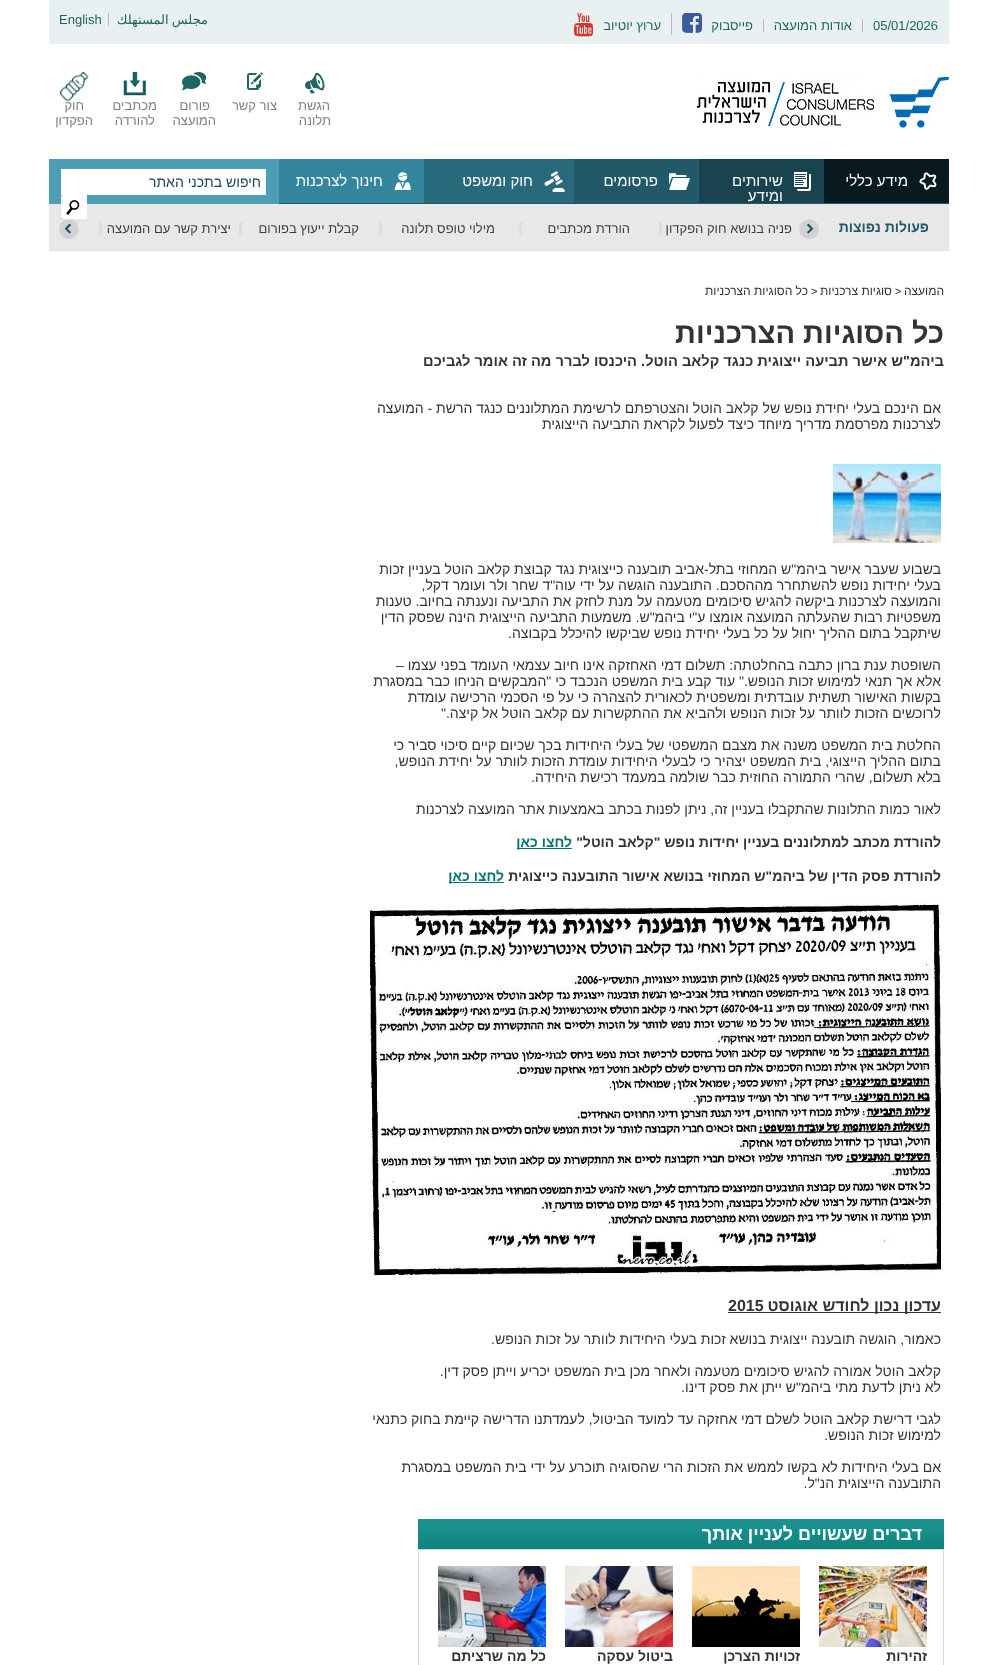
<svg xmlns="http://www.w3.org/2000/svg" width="997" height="1665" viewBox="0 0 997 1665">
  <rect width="100%" height="100%" fill="#fff"/>
  <path d="M49 0h900v44H49z" fill="#e9f0f2"/>
  <path d="M862 19h1v13H862z" fill="#bababa"/>
  <path d="M763 19h1v13H763z" fill="#bababa"/>
  <path d="M671 13h1v22H671z" fill="#bababa"/>
  <image x="682" y="13" width="20" height="20" href="img/1.png"/>
  <image x="574" y="13" width="19" height="24" href="img/2.png"/>
  <path d="M108 13h1v13H108z" fill="#bababa"/>
  <image x="697" y="77" width="252" height="51" href="img/3.png"/>
  <image x="305" y="72" width="20" height="22" href="img/4.png"/>
  <image x="247" y="72" width="16" height="18" href="img/5.png"/>
  <image x="182" y="72" width="25" height="19" href="img/6.png"/>
  <image x="123" y="72" width="23" height="24" href="img/7.png"/>
  <image x="60" y="72" width="29" height="30" href="img/8.png"/>
  <path d="M279 159h670v45H279z" fill="#215968"/>
  <path d="M824 159h125v44H824z" fill="#081a1f"/>
  <image x="919" y="172" width="18" height="18" href="img/9.png"/>
  <path d="M699 159h125v44H699z" fill="#19434f"/>
  <image x="794" y="172" width="17" height="19" href="img/10.png"/>
  <image x="669" y="173" width="21" height="17" href="img/11.png"/>
  <path d="M424 159h150v44H424z" fill="#286a7c"/>
  <image x="544" y="171" width="21" height="21" href="img/12.png"/>
  <path d="M279 159h145v44H279z" fill="#33869d"/>
  <image x="394" y="172" width="17" height="18" href="img/13.png"/>
  <path d="M49 159h230v45H49z" fill="#4c9eb5"/>
  <path d="M61 169h205v26H61z" fill="#fff"/>
  <path d="M49 204h900v46H49z" fill="#e8e8e8"/>
  <image x="61" y="195" width="26" height="24" href="img/14.png"/>
  <path d="M49 250h900v1H49z" fill="#e0e0e0"/>
  <image x="799" y="219" width="20" height="20" href="img/15.png"/>
  <path d="M659 222h3v13H659z" fill="#d4dfe3"/>
  <path d="M519 222h3v13H519z" fill="#d7e1e5"/>
  <path d="M379 222h3v13H379z" fill="#d7e1e5"/>
  <path d="M239 222h3v13H239z" fill="#d4dfe3"/>
  <path d="M99 222h3v13H99z" fill="#d7e1e5"/>
  <image x="59" y="219" width="20" height="20" href="img/16.png"/>
  <image x="833" y="464" width="108" height="80" href="img/17.png"/>
  <path d="M517 848h55v1H517z" fill="#057670"/>
  <path d="M449 882h55v1H449z" fill="#057670"/>
  <image x="370" y="901" width="571" height="375" href="img/18.png"/>
  <path d="M728 1312h213v1H728z" fill="#333"/>
  <image x="418" y="1519" width="526" height="30" href="img/19.png"/>
  <path d="M418.5 1549.5h525v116H418.5z" fill="none" stroke="#d7d7d7"/>
  <image x="819" y="1566" width="108" height="81" href="img/20.png"/>
  <image x="692" y="1566" width="108" height="81" href="img/21.png"/>
  <image x="565" y="1566" width="108" height="81" href="img/22.png"/>
  <image x="438" y="1566" width="108" height="81" href="img/23.png"/>
  <text x="873" y="30" font-family="Liberation Sans" font-size="13" fill="#1f6662">05/01/2026</text>
  <g font-family="Liberation Sans" font-size="13" direction="rtl" fill="#1f6662">
    <text x="852" y="30">אודות המועצה</text>
    <text x="753" y="30">פייסבוק</text>
    <text x="661" y="30">ערוץ יוטיוב</text>
  </g>
  <text x="208" y="24" word-spacing="-1" font-family="DejaVu Sans" font-size="13" direction="rtl" fill="#1f6662">مجلس المستهلك</text>
  <text x="59" y="24" font-family="Liberation Sans" font-size="13" fill="#1f6662">English</text>
  <g font-family="Liberation Sans" font-size="13" direction="rtl" fill="#7f7f7f">
    <text x="330" y="110">הגשת</text>
    <text x="331" y="125">תלונה</text>
    <text x="277" y="110">צור קשר</text>
    <text x="210" y="110">פורום</text>
    <text x="216" y="125">המועצה</text>
    <text x="157" y="110">מכתבים</text>
    <text x="155" y="125">להורדה</text>
    <text x="84" y="110">חוק</text>
    <text x="93" y="125">הפקדון</text>
  </g>
  <g font-family="Liberation Sans" font-size="15" direction="rtl" fill="#fff">
    <text x="908" y="186">מידע כללי</text>
    <text x="783" y="186">שירותים</text>
    <text x="783" y="201">ומידע</text>
    <text x="658" y="186">פרסומים</text>
    <text x="533" y="186">חוק ומשפט</text>
    <text x="383" y="186">חינוך לצרכנות</text>
  </g>
  <text x="261" y="187" font-family="Liberation Sans" font-size="14" direction="rtl" fill="#19434f">חיפוש בתכני האתר</text>
  <text x="929" y="232" font-family="Liberation Sans" font-size="14" font-weight="bold" direction="rtl" fill="#215968">פעולות נפוצות</text>
  <g font-family="Liberation Sans" font-size="13" direction="rtl" fill="#3a3f40">
    <text x="792" y="233">פניה בנושא חוק הפקדון</text>
    <text x="630" y="233">הורדת מכתבים</text>
    <text x="495" y="233">מילוי טופס תלונה</text>
    <text x="359" y="233">קבלת ייעוץ בפורום</text>
    <text x="231" y="233">יצירת קשר עם המועצה</text>
  </g>
  <text x="944" y="295" font-family="Liberation Sans" font-size="12" direction="rtl" fill="#333">המועצה</text>
  <text x="895" y="295" font-family="Liberation Sans" font-size="11" fill="#333">&gt;</text>
  <text x="892" y="295" font-family="Liberation Sans" font-size="12" direction="rtl" fill="#333">סוגיות צרכניות</text>
  <text x="811" y="295" font-family="Liberation Sans" font-size="11" fill="#333">&gt;</text>
  <text x="808" y="295" font-family="Liberation Sans" font-size="12" direction="rtl" fill="#333">כל הסוגיות הצרכניות</text>
  <text x="944" y="343" font-family="Liberation Sans" font-size="29" font-weight="bold" direction="rtl" fill="#333">כל הסוגיות הצרכניות</text>
  <text x="944" y="366" font-family="Liberation Sans" font-size="14.65" font-weight="bold" direction="rtl" fill="#333">ביהמ"ש אישר תביעה ייצוגית כנגד קלאב הוטל. היכנסו לברר מה זה אומר לגביכם</text>
  <g font-family="Liberation Sans" font-size="14" direction="rtl" fill="#333">
    <text x="941" y="413">אם הינכם בעלי יחידת נופש של קלאב הוטל והצטרפתם לרשימת המתלוננים כנגד הרשת - המועצה</text>
    <text x="941" y="429">לצרכנות מפרסמת מדריך מיוחד כיצד לפעול לקראת התביעה הייצוגית</text>
    <text x="941" y="574">בשבוע שעבר אישר ביהמ"ש המחוזי בתל-אביב תובענה כייצוגית נגד קבוצת קלאב הוטל בעניין זכות</text>
    <text x="941" y="590">בעלי יחידות נופש להשתחרר מההסכם. התובענה הוגשה על ידי עוה"ד שחר ולר ועומר דקל,</text>
    <text x="941" y="606">והמועצה לצרכנות ביקשה להגיש סיכומים מטעמה על מנת לחזק את התביעה ונענתה בחיוב. טענות</text>
    <text x="941" y="622">משפטיות רבות שהעלתה המועצה אומצו ע"י ביהמ"ש. משמעות התביעה הייצוגית הינה שפסק הדין</text>
    <text x="941" y="638">שיתקבל בתום ההליך יחול על כל בעלי יחידת נופש שביקשו להיכלל בקבוצה.</text>
    <text x="941" y="670">השופטת ענת ברון כתבה בהחלטתה: תשלום דמי האחזקה אינו חיוב עצמאי העומד בפני עצמו –</text>
    <text x="941" y="686">אלא אך תנאי למימוש זכות הנופש." עוד קבע בית המשפט הנכבד כי "המבקשים הניחו כבר במסגרת</text>
    <text x="941" y="702">בקשות האישור תשתית עובדתית ומשפטית לכאורית להצהרה כי על פי הסכמי הרכישה עומדת</text>
    <text x="941" y="718">לרוכשים הזכות לוותר על זכות הנופש ולהביא את ההתקשרות עם קלאב הוטל אל קיצה."</text>
    <text x="941" y="750">החלטת בית המשפט משנה את מצבם המשפטי של בעלי היחידות בכך שכיום קיים סיכוי סביר כי</text>
    <text x="941" y="766">בתום ההליך הייצוגי, בית המשפט יצהיר כי לבעלי היחידות עומדת הזכות לוותר על יחידת הנופש,</text>
    <text x="941" y="782">בלא תשלום, שהרי התמורה החוזית כבר שולמה במעמד רכישת היחידה.</text>
    <text x="941" y="814">לאור כמות התלונות שהתקבלו בעניין זה, ניתן לפנות בכתב באמצעות אתר המועצה לצרכנות</text>
  </g>
  <text x="941" y="847" font-family="Liberation Sans" font-size="14" font-weight="bold" direction="rtl" fill="#333">להורדת מכתב למתלוננים בעניין יחידות נופש "קלאב הוטל"</text>
  <text x="572" y="847" font-family="Liberation Sans" font-size="14" font-weight="bold" direction="rtl" fill="#057670">לחצו כאן</text>
  <text x="941" y="881" font-family="Liberation Sans" font-size="14" font-weight="bold" direction="rtl" fill="#333">להורדת פסק הדין של ביהמ"ש המחוזי בנושא אישור התובענה כייצוגית</text>
  <text x="504" y="881" font-family="Liberation Sans" font-size="14" font-weight="bold" direction="rtl" fill="#057670">לחצו כאן</text>
  <text x="941" y="1311" font-family="Liberation Sans" font-size="16" font-weight="bold" direction="rtl" fill="#333">עדכון נכון לחודש אוגוסט</text>
  <text x="728" y="1311" font-family="Liberation Sans" font-size="16" font-weight="bold" fill="#333">2015</text>
  <g font-family="Liberation Sans" font-size="14" direction="rtl" fill="#333">
    <text x="941" y="1344">כאמור, הוגשה תובענה ייצוגית בנושא זכות בעלי היחידות לוותר על זכות הנופש.</text>
    <text x="941" y="1376">קלאב הוטל אמורה להגיש סיכומים מטעמה ולאחר מכן בית המשפט יכריע וייתן פסק דין.</text>
    <text x="941" y="1392">לא ניתן לדעת מתי ביהמ"ש ייתן את פסק דינו.</text>
    <text x="941" y="1424">לגבי דרישת קלאב הוטל לשלם דמי אחזקה עד למועד הביטול, לעמדתנו הדרישה קיימת בחוק כתנאי</text>
    <text x="941" y="1440">למימוש זכות הנופש.</text>
    <text x="941" y="1472">אם בעלי היחידות לא בקשו לממש את הזכות הרי שהסוגיה תוכרע על ידי בית המשפט במסגרת</text>
    <text x="941" y="1488">התובענה הייצוגית הנ"ל.</text>
  </g>
  <text x="922" y="1540" font-family="Liberation Sans" font-size="18" font-weight="bold" direction="rtl" fill="#fff">דברים שעשויים לעניין אותך</text>
  <g font-family="Liberation Sans" font-size="14" font-weight="bold" direction="rtl" fill="#333">
    <text x="927" y="1661">זהירות</text>
    <text x="800" y="1661">זכויות הצרכן</text>
    <text x="673" y="1661">ביטול עסקה</text>
    <text x="546" y="1661">כל מה שרציתם</text>
  </g>
</svg>
